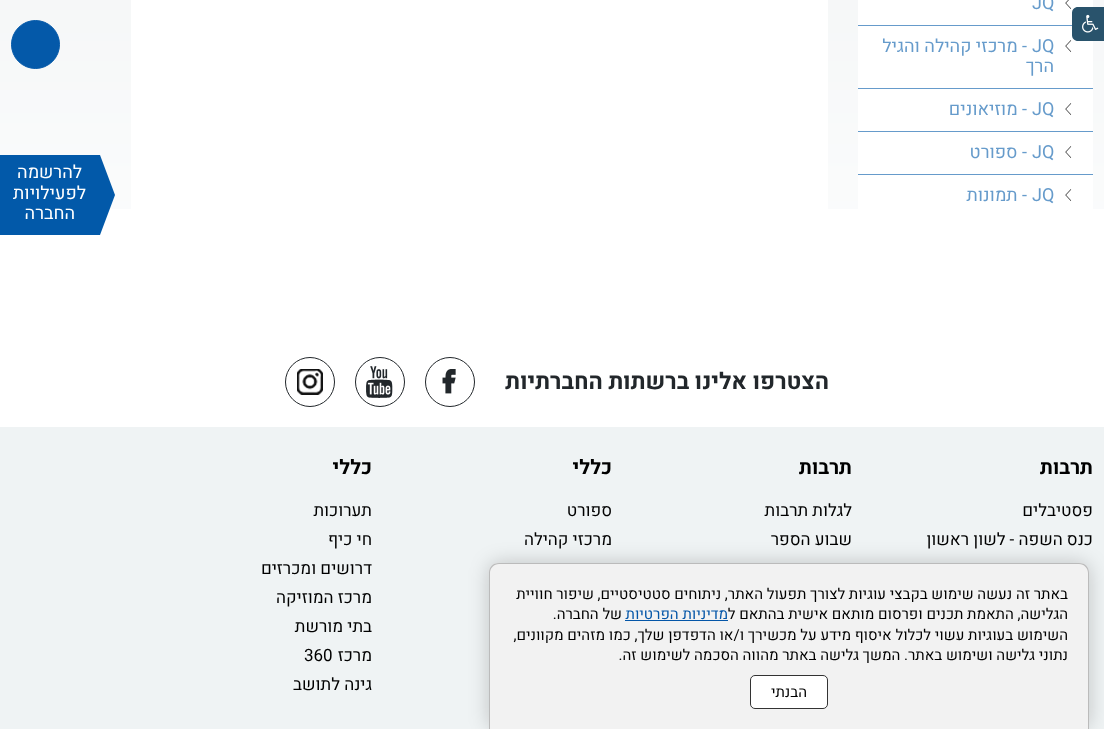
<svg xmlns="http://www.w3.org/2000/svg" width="1104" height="729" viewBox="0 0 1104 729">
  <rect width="100%" height="100%" fill="#fff"/>
  <image x="0" y="0" width="1104" height="209" href="img/1.png"/>
  <path d="M858 0h235v209H858z" fill="#fff"/>
  <path d="M858 25h214v1H858z" fill="#669bcb"/>
  <image x="1065" y="0" width="6" height="9" href="img/2.png"/>
  <path d="M858 88h235v1H858z" fill="#669bcb"/>
  <image x="1065" y="40" width="7" height="12" href="img/3.png"/>
  <path d="M858 131h235v1H858z" fill="#669bcb"/>
  <image x="1065" y="103" width="7" height="12" href="img/3.png"/>
  <path d="M858 174h235v1H858z" fill="#669bcb"/>
  <image x="1065" y="146" width="7" height="12" href="img/3.png"/>
  <image x="1065" y="189" width="7" height="12" href="img/3.png"/>
  <path d="M131 0h697v209H131z" fill="#fff"/>
  <circle cx="35.5" cy="44.5" r="24" fill="#0459a9" stroke="#0459a9"/>
  <path d="M100 235V155L115 195Z" fill="#0259a9"/>
  <path d="M0 155h100v80H0z" fill="#0259a9"/>
  <circle cx="450" cy="382" r="24.5" fill="none" stroke="#22272b"/>
  <image x="442" y="369" width="14" height="25" href="img/4.png"/>
  <circle cx="380" cy="382" r="24.5" fill="none" stroke="#22272b"/>
  <image x="366" y="366" width="27" height="32" href="img/5.png"/>
  <circle cx="310" cy="382" r="24.5" fill="none" stroke="#22272b"/>
  <image x="297" y="369" width="26" height="26" href="img/6.png"/>
  <path d="M0 427h1104v302H0z" fill="#eff3f4"/>
  <path d="M1078 7H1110V41H1078C1074.5 41 1072 38.5 1072 35V13C1072 9.5 1074.5 7 1078 7Z" fill="#29536c"/>
  <image x="1082" y="14" width="17" height="19" href="img/7.png"/>
  <rect x="489" y="563" width="600" height="166" rx="10" fill="#00000033" filter="blur(10px)"/>
  <path d="M499 563H1079C1084.5 563 1089 567.5 1089 573V729H489V573C489 567.5 493.5 563 499 563Z" fill="#f2f2f2"/>
  <path d="M499 563H1079C1085 563 1089 567 1089 573V729H489V573C489 567 493 563 499 563ZM499 564H1079C1084 564 1088 568 1088 573V729H490V573C490 568 494 564 499 564Z" fill="#bbb" fill-rule="evenodd"/>
  <path d="M625 620h103v1H625z" fill="#0456a8"/>
  <rect x="750.5" y="675.5" width="77" height="33" rx="4.5" fill="#fff" stroke="#333"/>
  <g font-family="Heebo" font-size="18" fill="#669bcb">
    <text x="1032" y="9">JQ</text>
    <text x="1032" y="52">JQ</text>
  </g>
  <g font-family="Heebo" font-size="18" direction="rtl" fill="#669bcb">
    <text x="1027" y="52">- מרכזי קהילה והגיל</text>
    <text x="1054" y="72">הרך</text>
  </g>
  <text x="1032" y="115" font-family="Heebo" font-size="18" fill="#669bcb">JQ</text>
  <text x="1027" y="115" font-family="Heebo" font-size="18" direction="rtl" fill="#669bcb">- מוזיאונים</text>
  <text x="1032" y="158" font-family="Heebo" font-size="18" fill="#669bcb">JQ</text>
  <text x="1027" y="158" font-family="Heebo" font-size="18" direction="rtl" fill="#669bcb">- ספורט</text>
  <text x="1032" y="201" font-family="Heebo" font-size="18" fill="#669bcb">JQ</text>
  <text x="1027" y="201" font-family="Heebo" font-size="18" direction="rtl" fill="#669bcb">- תמונות</text>
  <g font-family="Heebo" font-size="18" direction="rtl" fill="#fff">
    <text x="82" y="178">להרשמה</text>
    <text x="86" y="199">לפעילויות</text>
    <text x="75" y="219">החברה</text>
  </g>
  <text x="829" y="389" font-family="Heebo" font-size="23" font-weight="bold" direction="rtl" fill="#22272b">הצטרפו אלינו ברשתות החברתיות</text>
  <text x="1093" y="474" font-family="Heebo" font-size="20" font-weight="bold" direction="rtl" fill="#000">תרבות</text>
  <g font-family="Heebo" font-size="17" direction="rtl" fill="#000">
    <text x="1093" y="516">פסטיבלים</text>
    <text x="1093" y="545">כנס השפה - לשון ראשון</text>
  </g>
  <text x="852" y="474" font-family="Heebo" font-size="20" font-weight="bold" direction="rtl" fill="#000">תרבות</text>
  <g font-family="Heebo" font-size="17" direction="rtl" fill="#000">
    <text x="852" y="516">לגלות תרבות</text>
    <text x="852" y="545">שבוע הספר</text>
  </g>
  <text x="612" y="474" font-family="Heebo" font-size="20" font-weight="bold" direction="rtl" fill="#000">כללי</text>
  <g font-family="Heebo" font-size="17" direction="rtl" fill="#000">
    <text x="612" y="516">ספורט</text>
    <text x="612" y="545">מרכזי קהילה</text>
  </g>
  <text x="372" y="474" font-family="Heebo" font-size="20" font-weight="bold" direction="rtl" fill="#000">כללי</text>
  <g font-family="Heebo" font-size="17" direction="rtl" fill="#000">
    <text x="372" y="516">תערוכות</text>
    <text x="372" y="545">חי כיף</text>
    <text x="372" y="574">דרושים ומכרזים</text>
    <text x="372" y="603">מרכז המוזיקה</text>
    <text x="372" y="632">בתי מורשת</text>
    <text x="372" y="661">מרכז</text>
  </g>
  <text x="304" y="661" font-family="Heebo" font-size="17" fill="#000">360</text>
  <text x="372" y="690" font-family="Heebo" font-size="17" direction="rtl" fill="#000">גינה לתושב</text>
  <g font-family="Heebo" font-size="15" direction="rtl" fill="#000">
    <text x="1068" y="599">באתר זה נעשה שימוש בקבצי עוגיות לצורך תפעול האתר, ניתוחים סטטיסטיים, שיפור חוויית</text>
    <text x="1068" y="619">הגלישה, התאמת תכנים ופרסום מותאם אישית בהתאם ל</text>
  </g>
  <text x="728" y="619" font-family="Heebo" font-size="15" direction="rtl" fill="#0456a8">מדיניות הפרטיות</text>
  <g font-family="Heebo" font-size="15" direction="rtl" fill="#000">
    <text x="622" y="619">של החברה.</text>
    <text x="1068" y="640">השימוש בעוגיות עשוי לכלול איסוף מידע על מכשירך ו/או הדפדפן שלך, כמו מזהים מקוונים,</text>
    <text x="1068" y="660">נתוני גלישה ושימוש באתר. המשך</text>
    <text x="859" y="660">גלישה באתר מהווה הסכמה לשימוש זה.</text>
    <text x="807" y="697">הבנתי</text>
  </g>
</svg>
